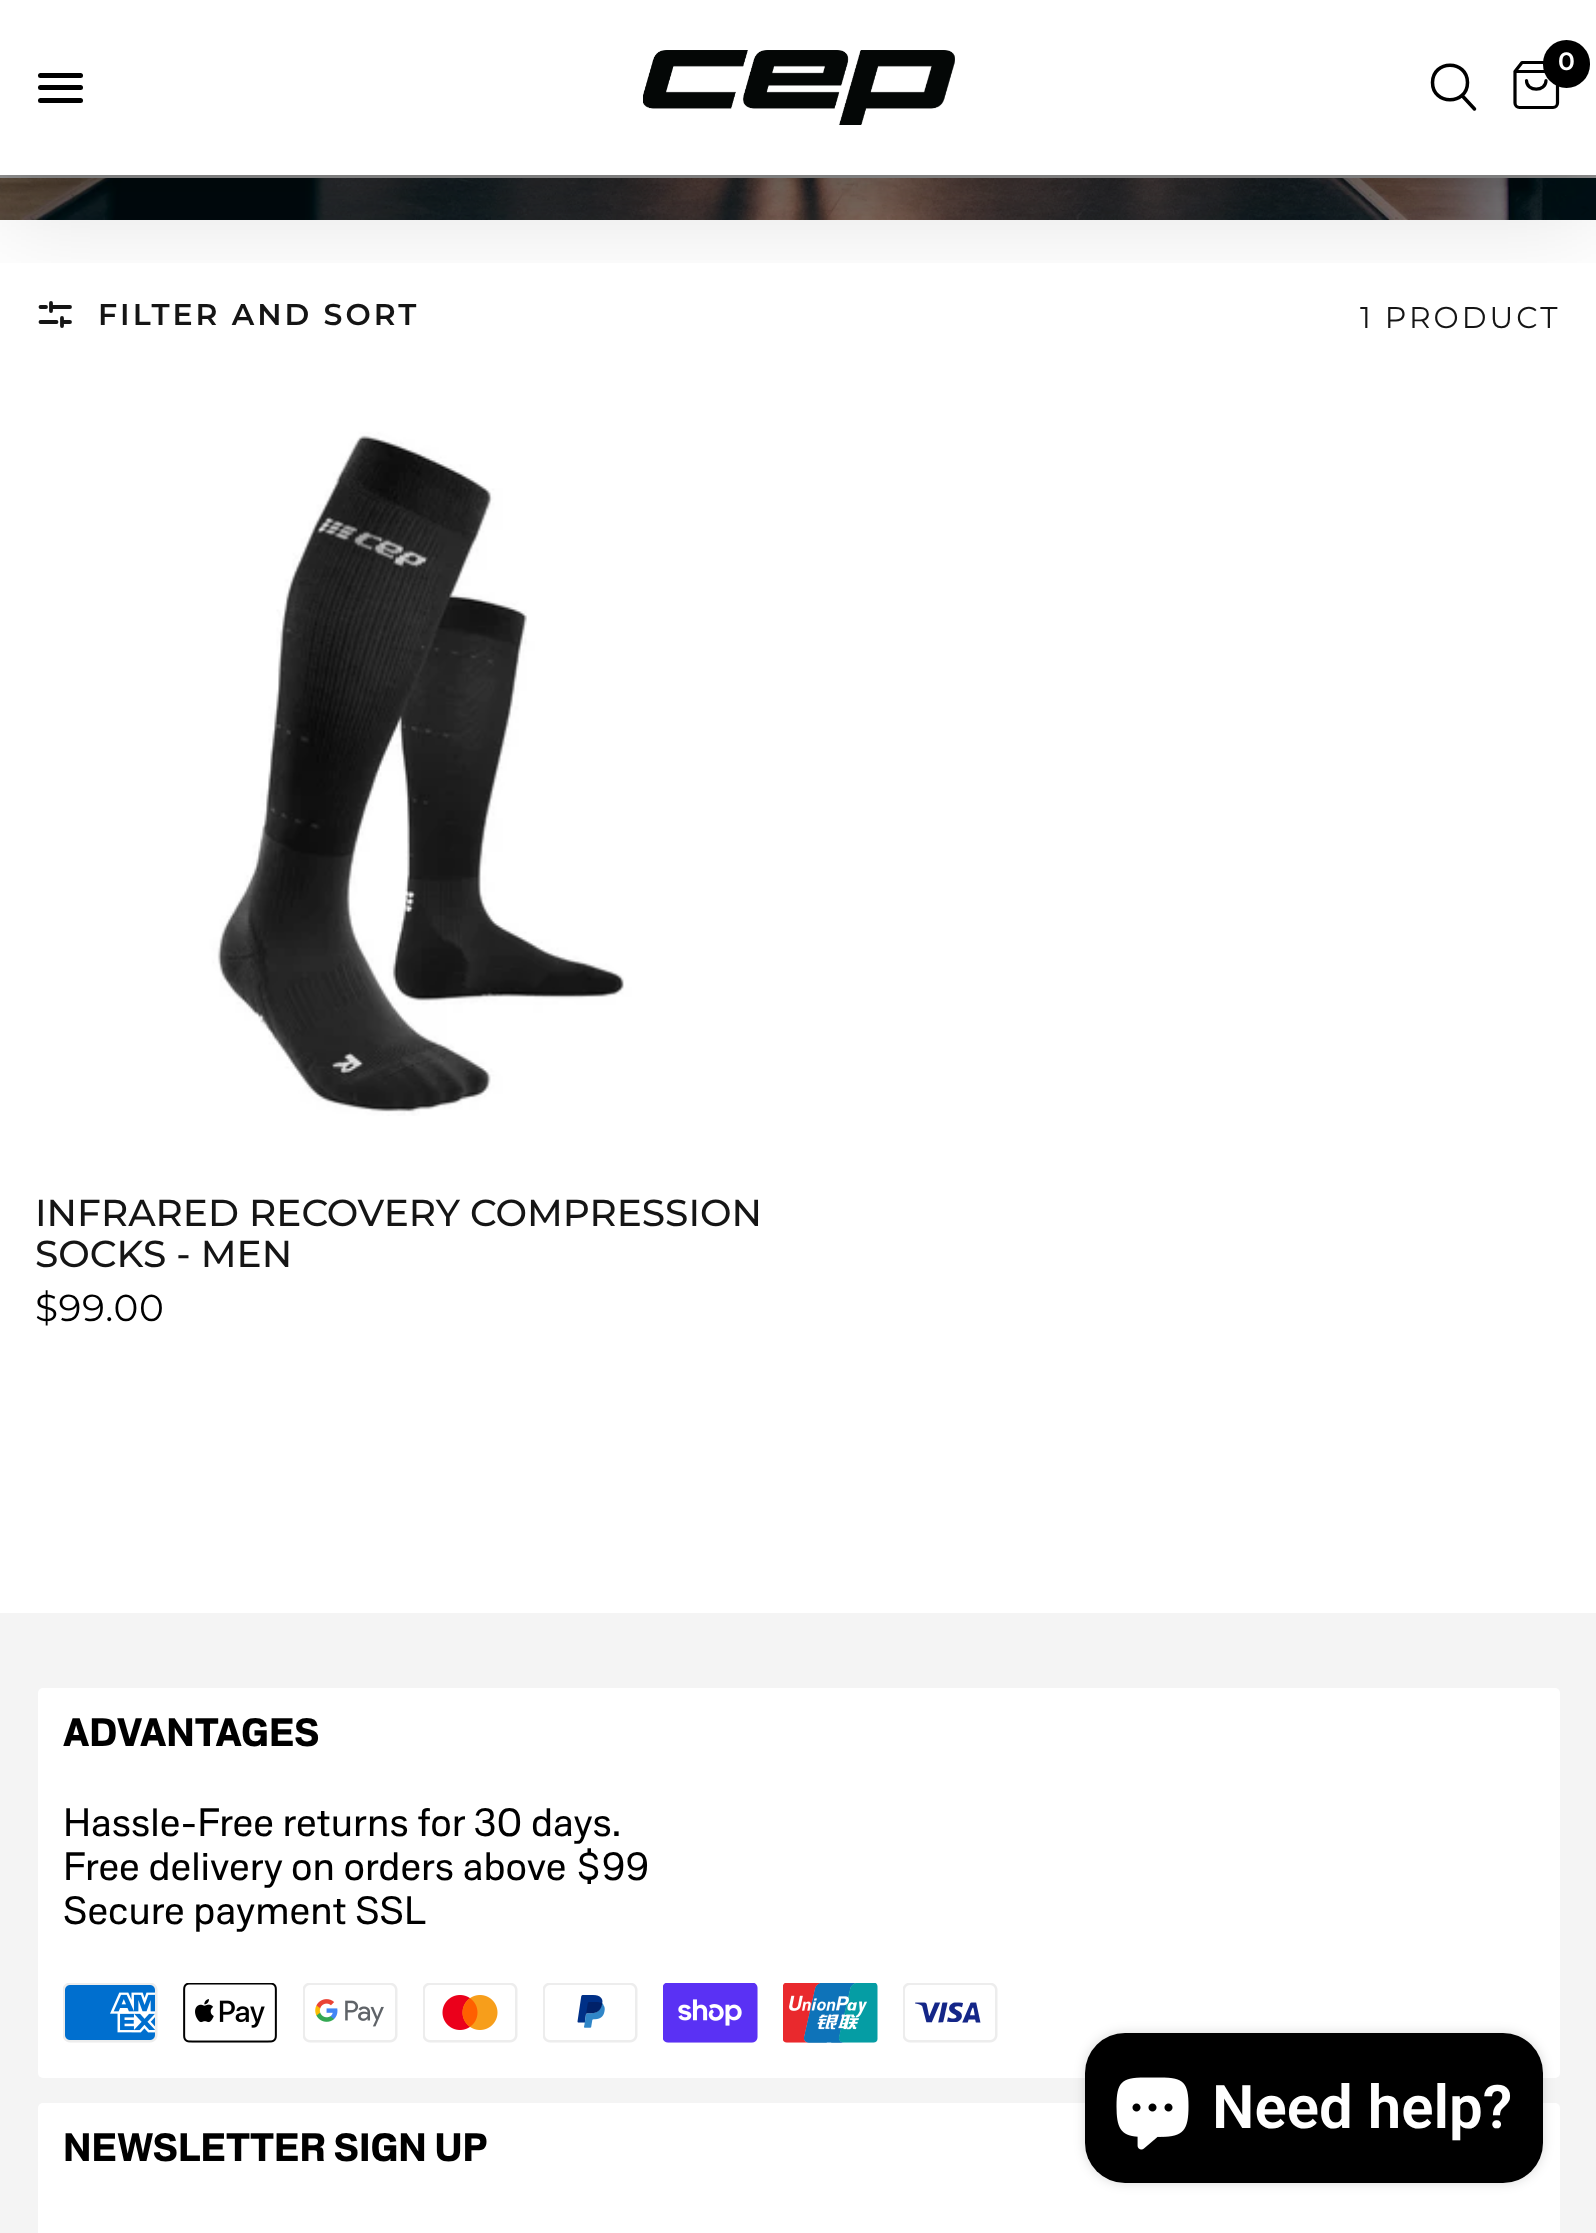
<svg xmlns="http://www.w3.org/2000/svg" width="1596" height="2233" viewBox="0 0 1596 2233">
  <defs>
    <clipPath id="clip1"><path d="M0 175h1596v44H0z"/></clipPath>
    <clipPath id="clip2"><path d="M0 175h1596v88H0z"/></clipPath>
  </defs>
  <rect width="100%" height="100%" fill="#fff"/>
  <path d="M0 175h1596v3H0z" fill="#999"/>
  <image x="0" y="178" width="1596" height="42" href="img/2.png"/>
  <g clip-path="url(#clip1)">
    <path d="M0 13h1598v175H0z" fill="#00000026" filter="blur(27.5px)"/>
  </g>
  <path d="M56.5 322H40.5M70 322H62M46 307H40.5M70 307H51M51 303V311M62 326V318" fill="none" stroke="#151515" stroke-width="3.8" stroke-linecap="round" stroke-linejoin="round"/>
  <g clip-path="url(#clip2)">
    <path d="M0 48h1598v175H0z" fill="#0000001a" filter="blur(47.5px)"/>
  </g>
  <image x="643" y="50" width="312" height="75" href="img/1.png"/>
  <path d="M1462.5 96L1474.5 109M1467.5 82.5C1467.5 105.5 1432.5 105.5 1432.5 82.5C1432.5 59.5 1467.5 59.5 1467.5 82.5Z" fill="none" stroke="#000" stroke-width="3.5" stroke-linecap="round" stroke-linejoin="round"/>
  <path d="M1515 71.5L1522 62.5H1550.5L1557.5 71.5M1515 71.5V103C1515 105.5 1517 107.5 1519.5 107.5H1553C1555.5 107.5 1557.5 105.5 1557.5 103V71.5M1515 71.5H1557.5M1546 80.5C1546 92 1526.5 92 1526.5 80.5" fill="none" stroke="#000" stroke-width="3.2" stroke-linecap="round" stroke-linejoin="round"/>
  <rect x="1543" y="40" width="47" height="48" rx="23.5" fill="#000"/>
  <rect x="38" y="73" width="45" height="5" rx="2.5" fill="#000"/>
  <rect x="38" y="85" width="45" height="5" rx="2.5" fill="#000"/>
  <rect x="38" y="98" width="45" height="5" rx="2.5" fill="#000"/>
  <image x="35" y="400" width="755" height="716" href="img/3.png"/>
  <path d="M0 1613h1596v620H0z" fill="#f4f4f4"/>
  <rect x="38" y="1688" width="1522" height="390" rx="5" fill="#fff"/>
  <image x="63" y="1983" width="95" height="60" href="img/4.png"/>
  <image x="183" y="1983" width="94" height="60" href="img/5.png"/>
  <image x="303" y="1983" width="95" height="60" href="img/6.png"/>
  <image x="423" y="1983" width="95" height="60" href="img/7.png"/>
  <image x="543" y="1983" width="95" height="60" href="img/8.png"/>
  <image x="663" y="1983" width="95" height="60" href="img/9.png"/>
  <image x="783" y="1983" width="95" height="60" href="img/10.png"/>
  <image x="903" y="1983" width="95" height="60" href="img/11.png"/>
  <rect x="38" y="2103" width="1522" height="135" rx="5" fill="#fff"/>
  <rect x="1085" y="2033" width="458" height="150" rx="40" fill="#00000026" filter="blur(6px)"/>
  <rect x="1085" y="2033" width="458" height="150" rx="40" fill="#000"/>
  <image x="1116" y="2077" width="73" height="73" href="img/12.png"/>
  <text x="1558" y="70" font-family="Montserrat" font-size="25" font-weight="600" fill="#fff">0</text>
  <text x="98" y="325" font-family="Montserrat" font-size="30" font-weight="600" letter-spacing="3" fill="#151515">FILTER AND SORT</text>
  <text x="1360" y="328" font-family="Montserrat" font-size="30" letter-spacing="3" fill="#151515">1 PRODUCT</text>
  <g font-family="Montserrat" font-size="37.5" font-weight="500" fill="#151515">
    <text x="35" y="1226">INFRARED RECOVERY COMPRESSION</text>
    <text x="35" y="1267">SOCKS - MEN</text>
  </g>
  <text x="35" y="1321" font-family="Montserrat" font-size="37.5" letter-spacing="0.75" fill="#000">$99.00</text>
  <text x="63" y="1746" font-family="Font" font-size="40" font-weight="bold" fill="#000">ADVANTAGES</text>
  <g font-family="Font" font-size="40" fill="#000">
    <text x="63" y="1836">Hassle-Free returns for 30 days.</text>
    <text x="63" y="1880">Free delivery on orders above $99</text>
    <text x="63" y="1924">Secure payment SSL</text>
  </g>
  <text x="63" y="2161" font-family="Font" font-size="40" font-weight="bold" fill="#000">NEWSLETTER SIGN UP</text>
  <text x="1212" y="2128" font-family="Roboto" font-size="60" font-weight="600" fill="#fff">Need help?</text>
</svg>
